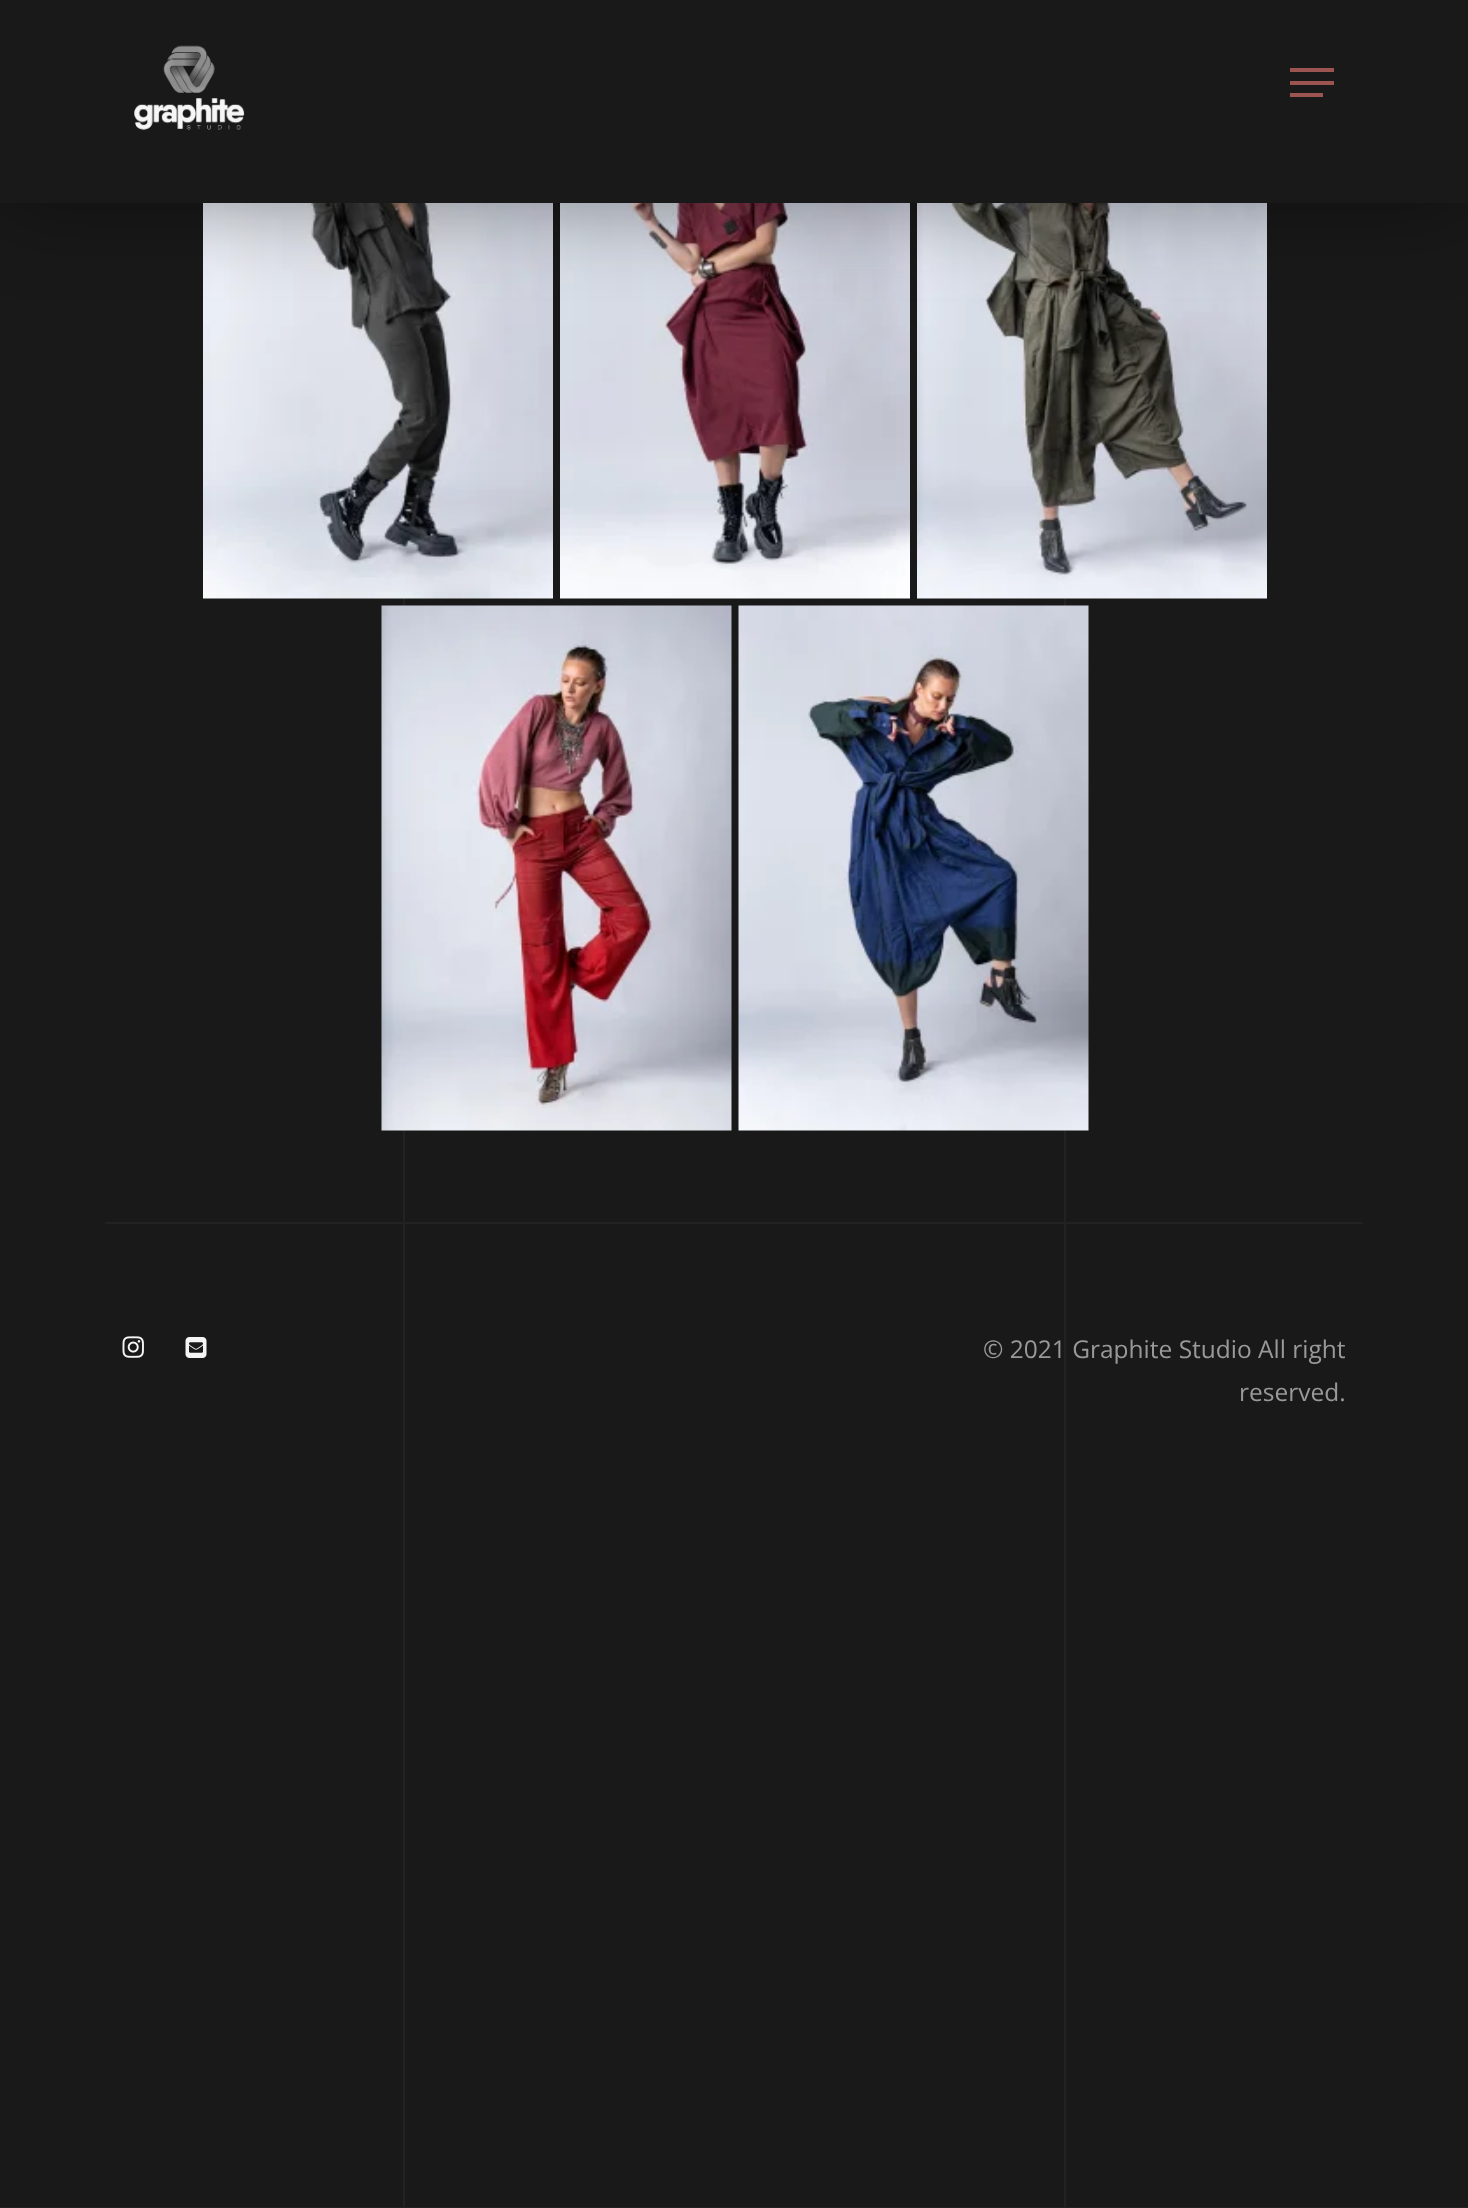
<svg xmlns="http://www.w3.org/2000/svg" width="1468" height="2208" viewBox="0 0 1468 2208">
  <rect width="100%" height="100%" fill="#191919"/>
  <path d="M105 1222h1258v2H105z" fill="#222"/>
  <path d="M403 598h2v1609H403z" fill="#222"/>
  <image x="203" y="203" width="350" height="396" href="img/2.png"/>
  <image x="560" y="203" width="350" height="396" href="img/3.png"/>
  <path d="M1064 598h2v1609H1064z" fill="#222"/>
  <image x="917" y="203" width="350" height="396" href="img/4.png"/>
  <path d="M0 0h1468v203H0z" fill="#00000066" filter="blur(44px)"/>
  <path d="M0 0h1468v203H0z" fill="#191919"/>
  <image x="134" y="45" width="111" height="85" href="img/1.png"/>
  <path d="M1290 68h44v4H1290z" fill="#9c5451"/>
  <path d="M1290 81h44v4H1290z" fill="#9c5451"/>
  <path d="M1290 93h33v4H1290z" fill="#9c5451"/>
  <image x="381" y="605" width="351" height="526" href="img/5.png"/>
  <image x="738" y="605" width="351" height="526" href="img/6.png"/>
  <path d="M0 2207h1468v1H0z" fill="#222"/>
  <image x="122" y="1336" width="22" height="22" href="img/7.png"/>
  <image x="185" y="1337" width="22" height="21" href="img/8.png"/>
  <g font-family="Open Sans" font-size="24.5" fill="#999">
    <text x="983" y="1358">© 2021 Graphite Studio All right</text>
    <text x="1239" y="1401">reserved.</text>
  </g>
</svg>
